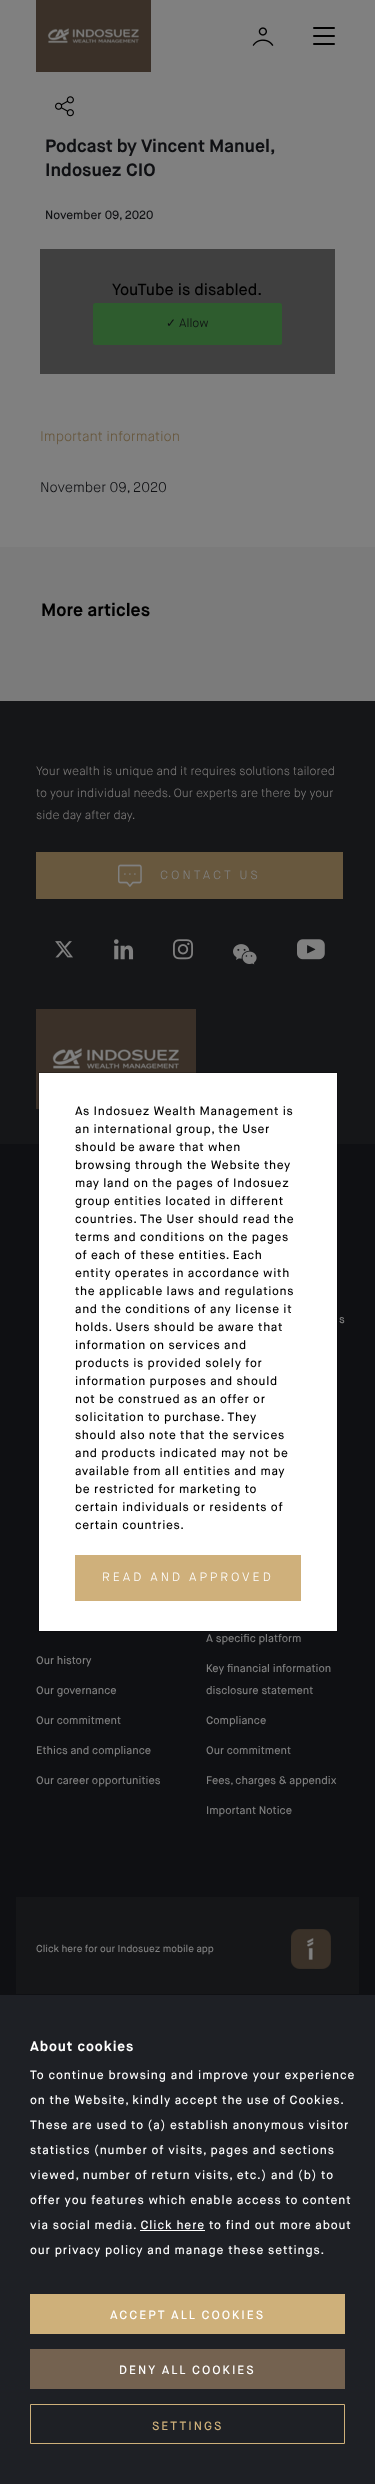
<svg xmlns="http://www.w3.org/2000/svg" width="375" height="2484" viewBox="0 0 375 2484">
  <rect width="100%" height="100%" fill="#808080"/>
  <image x="36" y="0" width="115" height="72" href="img/1.png"/>
  <image x="252" y="27" width="22" height="19" href="img/2.png"/>
  <rect x="313" y="27" width="22" height="2" rx="1" fill="#000"/>
  <rect x="313" y="35" width="22" height="2" rx="1" fill="#000"/>
  <rect x="313" y="43" width="22" height="2" rx="1" fill="#000"/>
  <image x="55" y="96" width="19" height="21" href="img/3.png"/>
  <path d="M40 249h295v125H40z" fill="#404040"/>
  <rect x="93" y="303" width="189" height="42" rx="2.5" fill="#2e5c2e"/>
  <path d="M0 547h375v154H0z" fill="#7b7b7b"/>
  <path d="M0 1144h375v851H0z" fill="#0f1013"/>
  <path d="M0 701h375v443H0z" fill="#151618"/>
  <path d="M36 852h307v47H36z" fill="#68583e"/>
  <image x="118" y="864" width="24" height="23" href="img/4.png"/>
  <image x="55" y="941" width="18" height="17" href="img/5.png"/>
  <image x="114" y="939" width="20" height="21" href="img/6.png"/>
  <image x="173" y="939" width="20" height="21" href="img/7.png"/>
  <image x="233" y="944" width="24" height="21" href="img/8.png"/>
  <image x="297" y="939" width="28" height="21" href="img/9.png"/>
  <image x="36" y="1009" width="160" height="100" href="img/10.png"/>
  <path d="M16 1897h343v97H16z" fill="#151618"/>
  <image x="291" y="1929" width="40" height="40" href="img/11.png"/>
  <path d="M39 1073h298v558H39z" fill="#fff"/>
  <path d="M38.5 1072.5h299v559H38.5z" fill="none" stroke="#00000033"/>
  <path d="M75 1555h226v46H75z" fill="#cfb07b"/>
  <path d="M0 1995h375v489H0z" fill="#1e2025"/>
  <path d="M140 2230h65v1H140z" fill="#fff"/>
  <path d="M30 2294h315v40H30z" fill="#ceb07a"/>
  <path d="M30 2349h315v40H30z" fill="#746250"/>
  <path d="M30.5 2404.5h314v39H30.5z" fill="none" stroke="#ceb07a"/>
  <g font-family="Maison Neue" font-size="18" font-weight="bold" fill="#0f1013">
    <text x="45" y="152" word-spacing="-0.5">Podcast by Vincent Manuel,</text>
    <text x="45" y="176">Indosuez CIO</text>
  </g>
  <text x="45" y="219" font-family="Maison Neue" font-size="12" font-weight="500" fill="#0f1013">November 09, 2020</text>
  <text x="112" y="295" font-family="Maison Neue" font-size="16" font-weight="500" fill="#000">YouTube is disabled.</text>
  <text x="166" y="327" font-family="DejaVu Sans" font-size="12" fill="#0f1013">✓</text>
  <text x="179" y="327" font-family="Maison Neue" font-size="12" font-weight="300" fill="#0f1013">Allow</text>
  <text x="40" y="441" font-family="Maison Neue" font-size="14" font-weight="300" fill="#68583e">Important information</text>
  <text x="40" y="492" font-family="Maison Neue" font-size="14" font-weight="300" fill="#0f1013">November 09, 2020</text>
  <text x="41" y="616" font-family="Maison Neue" font-size="18" font-weight="bold" fill="#000">More articles</text>
  <g font-family="Maison Neue" font-size="12" font-weight="300" fill="#797776">
    <text x="36" y="775">Your wealth is unique and it requires solutions tailored</text>
    <text x="36" y="797">to your individual needs. Our experts are there by your</text>
    <text x="36" y="819">side day after day.</text>
  </g>
  <text x="160" y="879" font-family="Maison Neue" font-size="12" font-weight="300" letter-spacing="3" fill="#808080">CONTACT US</text>
  <g font-family="Maison Neue" font-size="11" font-weight="500" fill="#808080">
    <text x="339" y="1323">s</text>
    <text x="36" y="1664">Our history</text>
    <text x="36" y="1694">Our governance</text>
    <text x="36" y="1724">Our commitment</text>
    <text x="36" y="1754">Ethics and compliance</text>
    <text x="36" y="1784">Our career opportunities</text>
    <text x="206" y="1642">A specific platform</text>
    <text x="206" y="1672">Key financial information</text>
    <text x="206" y="1694">disclosure statement</text>
    <text x="206" y="1724">Compliance</text>
    <text x="206" y="1754">Our commitment</text>
    <text x="206" y="1784">Fees, charges &amp; appendix</text>
    <text x="206" y="1814">Important Notice</text>
  </g>
  <text x="36" y="1952" font-family="Maison Neue" font-size="10" font-weight="500" fill="#808080">Click here for our Indosuez mobile app</text>
  <g font-family="Maison Neue" font-size="12" font-weight="500" letter-spacing="0.65" fill="#000">
    <text x="75" y="1115">As Indosuez Wealth Management is</text>
    <text x="75" y="1133">an international group, the User</text>
    <text x="75" y="1151">should be aware that when</text>
    <text x="75" y="1169">browsing through the Website they</text>
    <text x="75" y="1187">may land on the pages of Indosuez</text>
    <text x="75" y="1205">group entities located in different</text>
    <text x="75" y="1223">countries. The User should read the</text>
    <text x="75" y="1241">terms and conditions on the pages</text>
    <text x="75" y="1259">of each of these entities. Each</text>
    <text x="75" y="1277">entity operates in accordance with</text>
    <text x="75" y="1295">the applicable laws and regulations</text>
    <text x="75" y="1313">and the conditions of any license it</text>
    <text x="75" y="1331">holds. Users should be aware that</text>
    <text x="75" y="1349">information on services and</text>
    <text x="75" y="1367">products is provided solely for</text>
    <text x="75" y="1385">information purposes and should</text>
    <text x="75" y="1403">not be construed as an offer or</text>
    <text x="75" y="1421">solicitation to purchase. They</text>
    <text x="75" y="1439">should also note that the services</text>
    <text x="75" y="1457">and products indicated may not be</text>
    <text x="75" y="1475">available from all entities and may</text>
    <text x="75" y="1493">be restricted for marketing to</text>
    <text x="75" y="1511">certain individuals or residents of</text>
    <text x="75" y="1529">certain countries.</text>
  </g>
  <text x="102" y="1581" font-family="Maison Neue" font-size="12" font-weight="300" letter-spacing="3" fill="#fff">READ AND APPROVED</text>
  <text x="30" y="2051" font-family="Maison Neue" font-size="14" font-weight="bold" letter-spacing="0.9" fill="#fff">About cookies</text>
  <g font-family="Maison Neue" font-size="12" font-weight="500" letter-spacing="0.9" fill="#fff">
    <text x="30" y="2079">To continue browsing and improve your experience</text>
    <text x="30" y="2104" word-spacing="-0.25">on the Website, kindly accept the use of Cookies.</text>
    <text x="30" y="2129">These are used to (a) establish anonymous visitor</text>
    <text x="30" y="2154">statistics (number of visits, pages and sections</text>
    <text x="30" y="2179">viewed, number of return visits, etc.) and (b) to</text>
    <text x="30" y="2204">offer you features which enable access to content</text>
    <text x="30" y="2229">via social media. Click here to find out more about</text>
    <text x="30" y="2254">our privacy policy and manage these settings.</text>
  </g>
  <g font-family="Maison Neue" font-size="12" font-weight="500" letter-spacing="2" fill="#fff">
    <text x="110" y="2319">ACCEPT ALL COOKIES</text>
    <text x="119" y="2374">DENY ALL COOKIES</text>
  </g>
  <text x="152" y="2430" font-family="Maison Neue" font-size="12" font-weight="500" letter-spacing="2" fill="#ceb07a">SETTINGS</text>
</svg>
